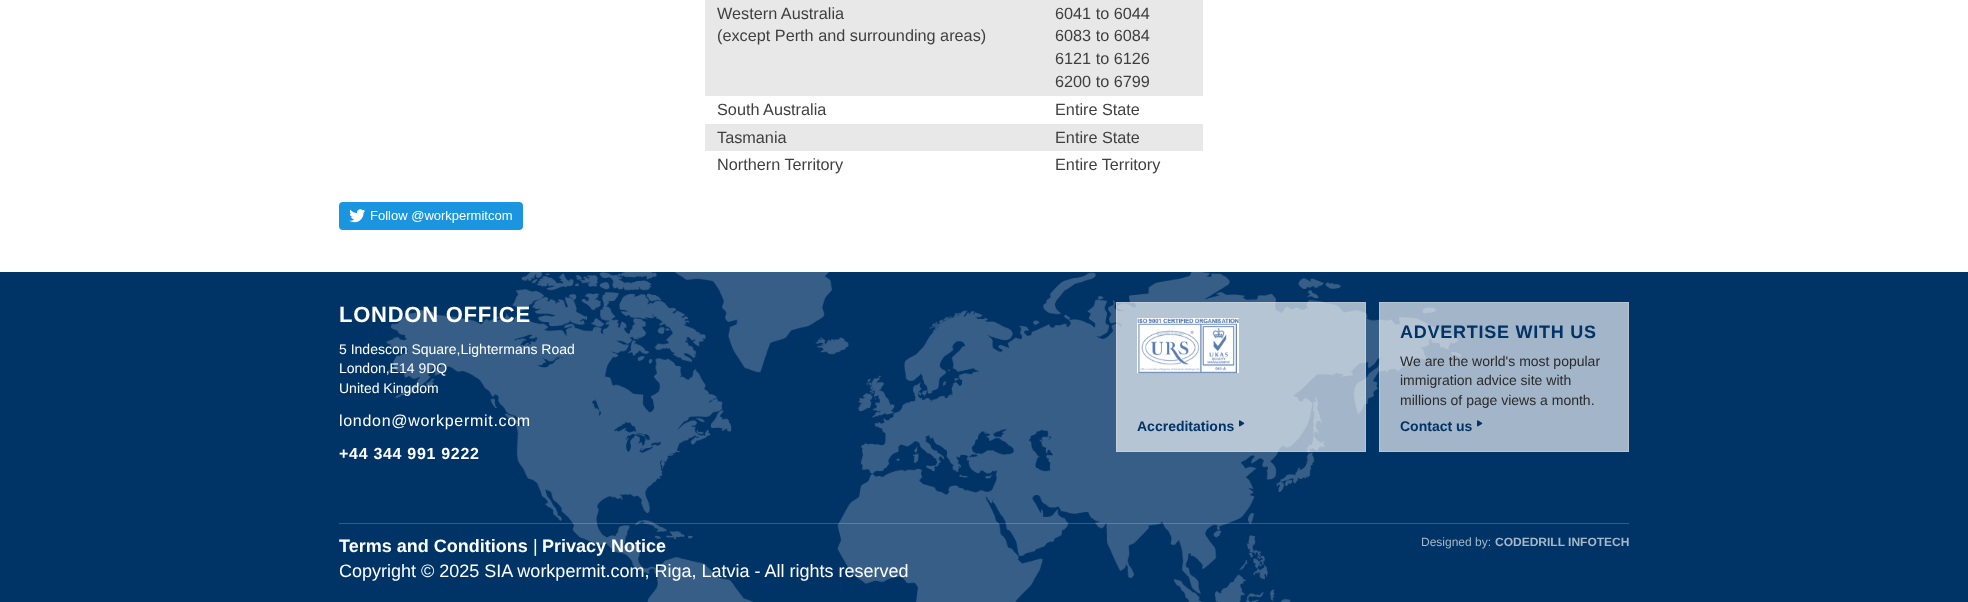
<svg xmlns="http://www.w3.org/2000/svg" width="1968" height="602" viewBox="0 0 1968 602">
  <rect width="100%" height="100%" fill="#fff"/>
  <path d="M705 0h498v96H705z" fill="#e8e8e8"/>
  <path d="M705 124h498v27H705z" fill="#e8e8e8"/>
  <image x="339" y="202" width="184" height="28" href="img/1.png"/>
  <path d="M0 272h1968v330H0z" fill="#036"/>
  <image x="386" y="272" width="1076" height="330" href="img/2.png"/>
  <path d="M1116 302h250v150H1116z" fill="#ffffffa3"/>
  <path d="M1116.5 302.5h249v149H1116.5z" fill="none" stroke="#ffffff33"/>
  <image x="1137" y="318" width="102" height="56" href="img/3.png"/>
  <image x="1239" y="420" width="6" height="7" href="img/4.png"/>
  <path d="M1379 302h250v150H1379z" fill="#ffffffa3"/>
  <path d="M1379.5 302.5h249v149H1379.5z" fill="none" stroke="#ffffff33"/>
  <image x="1477" y="420" width="6" height="7" href="img/5.png"/>
  <path d="M339 523h1290v1H339z" fill="#ffffff33"/>
  <g font-family="Liberation Sans" font-size="16.25" fill="#3f3f3f">
    <text x="717" y="19">Western Australia</text>
    <text x="717" y="41">(except Perth and surrounding areas)</text>
    <text x="1055" y="19">6041 to 6044</text>
    <text x="1055" y="41">6083 to 6084</text>
    <text x="1055" y="64">6121 to 6126</text>
    <text x="1055" y="87">6200 to 6799</text>
    <text x="717" y="115">South Australia</text>
    <text x="1055" y="115">Entire State</text>
    <text x="717" y="143">Tasmania</text>
    <text x="1055" y="143">Entire State</text>
    <text x="717" y="170">Northern Territory</text>
    <text x="1055" y="170">Entire Territory</text>
  </g>
  <text x="339" y="322" font-family="Liberation Sans" font-size="22" font-weight="bold" letter-spacing="0.75" fill="#fff">LONDON OFFICE</text>
  <g font-family="Liberation Sans" font-size="14" fill="#fff">
    <text x="339" y="354">5 Indescon Square,Lightermans Road</text>
    <text x="339" y="373">London,E14 9DQ</text>
    <text x="339" y="393">United Kingdom</text>
  </g>
  <text x="339" y="426" font-family="Liberation Sans" font-size="16" letter-spacing="0.7" fill="#fff">london@workpermit.com</text>
  <text x="339" y="459" font-family="Liberation Sans" font-size="16" font-weight="bold" letter-spacing="0.7" fill="#fff">+44 344 991 9222</text>
  <text x="1137" y="431" font-family="Liberation Sans" font-size="14" font-weight="bold" fill="#036">Accreditations</text>
  <text x="1400" y="338" font-family="Liberation Sans" font-size="18" font-weight="bold" letter-spacing="0.75" fill="#036">ADVERTISE WITH US</text>
  <g font-family="Liberation Sans" font-size="14" fill="#2a2a2a">
    <text x="1400" y="366">We are the world's most popular</text>
    <text x="1400" y="385">immigration advice site with</text>
    <text x="1400" y="405">millions of page views a month.</text>
  </g>
  <text x="1400" y="431" font-family="Liberation Sans" font-size="14" font-weight="bold" fill="#036">Contact us</text>
  <text x="339" y="552" font-family="Liberation Sans" font-size="18" font-weight="bold" fill="#fff">Terms and Conditions</text>
  <text x="533" y="552" font-family="Liberation Sans" font-size="18" fill="#fff">|</text>
  <text x="542" y="552" font-family="Liberation Sans" font-size="18" font-weight="bold" fill="#fff">Privacy Notice</text>
  <text x="339" y="577" font-family="Liberation Sans" font-size="18" fill="#fff">Copyright © 2025 SIA workpermit.com, Riga, Latvia - All rights reserved</text>
  <text x="1421" y="546" font-family="Liberation Sans" font-size="12" fill="#a6b8c9">Designed by:</text>
  <text x="1495" y="546" font-family="Liberation Sans" font-size="12" font-weight="bold" fill="#a6b8c9">CODEDRILL INFOTECH</text>
</svg>
